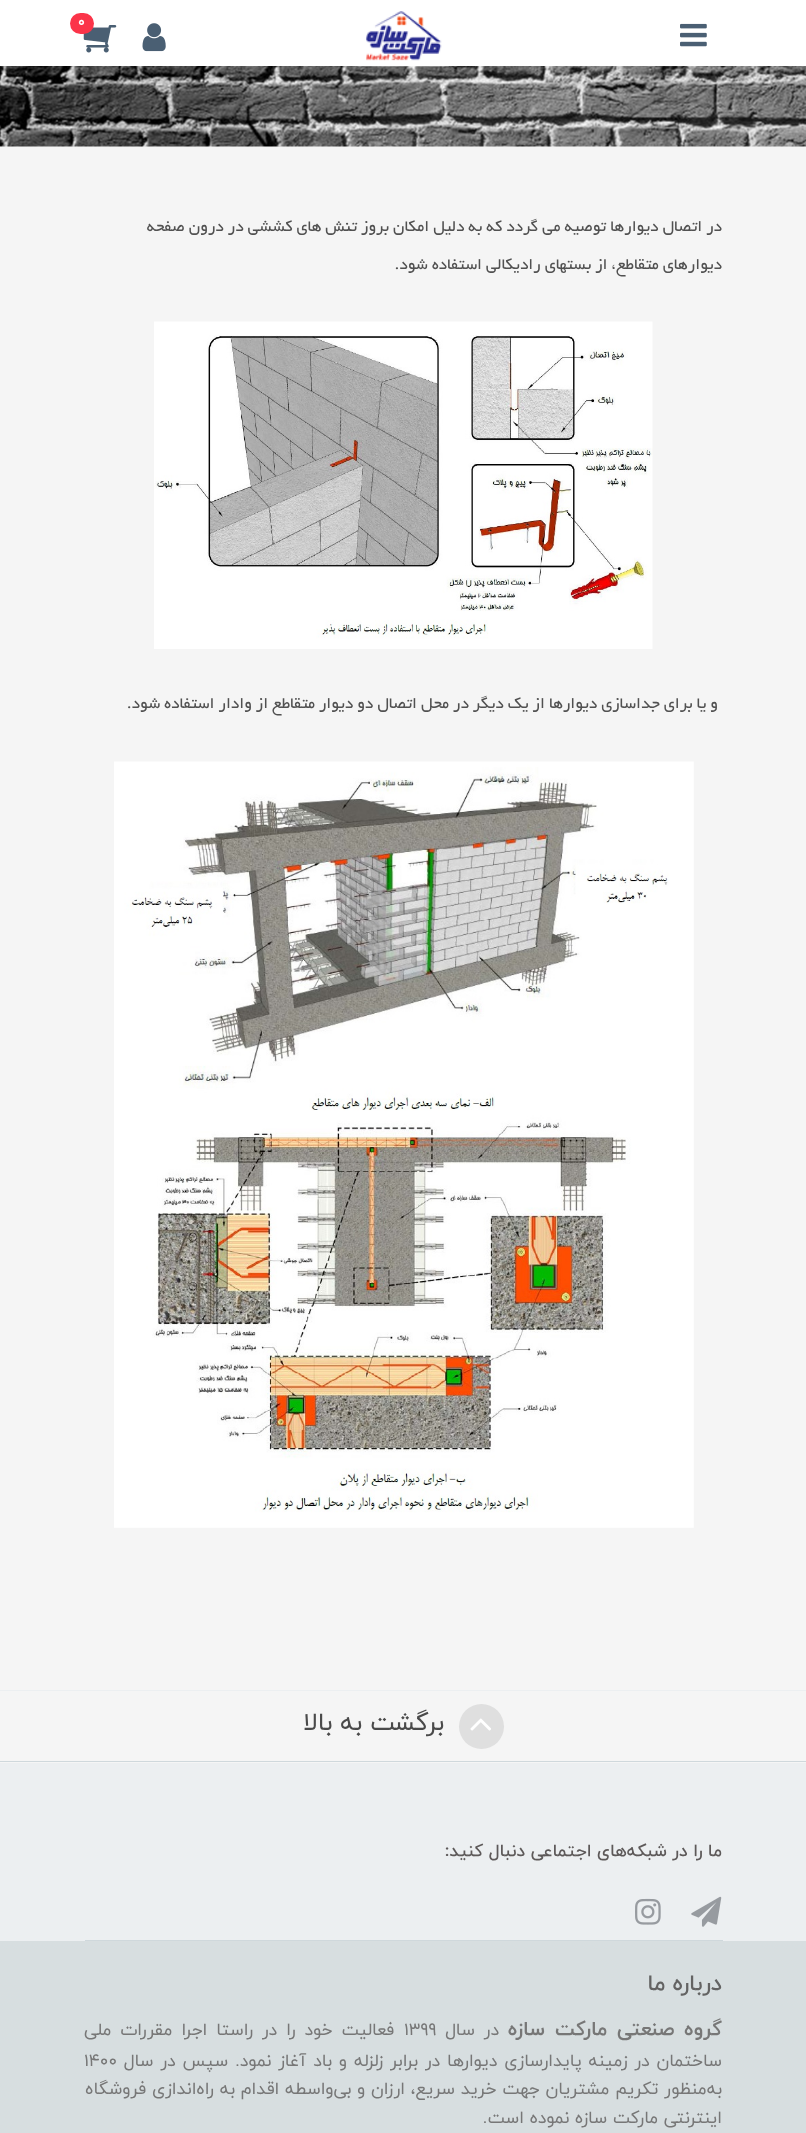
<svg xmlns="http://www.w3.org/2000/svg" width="806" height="2133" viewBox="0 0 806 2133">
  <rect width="100%" height="100%" fill="#f5f5f5"/>
  <path d="M0 0h806v66H0z" fill="#fff"/>
  <image x="0" y="66" width="806" height="81" href="img/5.png"/>
  <image x="357" y="11" width="92" height="56" href="img/1.png"/>
  <image x="83" y="25" width="34" height="28" href="img/2.png"/>
  <rect x="70" y="13" width="24" height="21" rx="10.5" fill="#fb3449"/>
  <image x="142" y="23" width="24" height="29" href="img/3.png"/>
  <image x="680" y="23" width="27" height="24" href="img/4.png"/>
  <image x="154" y="321" width="499" height="328" href="img/6.png"/>
  <image x="114" y="761" width="580" height="767" href="img/7.png"/>
  <path d="M0 1690h806v1H0z" fill="#eceff1"/>
  <path d="M0 1761h806v1H0z" fill="#cfd8dc"/>
  <circle cx="481.5" cy="1726.5" r="22.5" fill="#dfdfdf"/>
  <image x="470" y="1718" width="21" height="13" href="img/8.png"/>
  <path d="M0 1763h806v178H0z" fill="#eceff1"/>
  <path d="M85 1940h638v1H85z" fill="#cfd8dc"/>
  <image x="691" y="1896" width="31" height="31" href="img/9.png"/>
  <image x="635" y="1898" width="26" height="27" href="img/10.png"/>
  <path d="M0 1941h806v192H0z" fill="#d7dee0"/>
  <text x="78" y="26" font-family="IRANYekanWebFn" font-size="14" font-weight="bold" fill="#fff">0</text>
  <g font-family="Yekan" font-size="17.5" direction="rtl" fill="#515151">
    <text x="722" y="231">در اتصال دیوارها توصیه می گردد که به دلیل امکان بروز تنش هاي کششی در درون صفحه</text>
    <text x="722" y="269">دیوارهاي متقاطع، از بستهای رادیکالی استفاده شود.</text>
    <text x="718" y="708">و یا براي جداسازي دیوارها از یک دیگر در محل اتصال دو دیوار متقاطع از وادار استفاده شود.</text>
  </g>
  <text x="444" y="1730" font-family="IRANYekanWebFn" font-size="25" direction="rtl" fill="#4a4a4a">برگشت به بالا</text>
  <text x="722" y="1856" font-family="IRANYekanWebFn" font-size="17.5" font-weight="500" direction="rtl" fill="#5d5959">ما را در شبکه‌های اجتماعی دنبال کنید:</text>
  <text x="722" y="1990" font-family="IRANYekanWebFn" font-size="22.5" font-weight="500" direction="rtl" fill="#636363">درباره ما</text>
  <text x="722" y="2035" word-spacing="3.5" font-family="IRANYekanWebFn" font-size="20" font-weight="bold" direction="rtl" fill="#777">گروه صنعتی مارکت سازه</text>
  <text x="499" y="2035" word-spacing="3.5" font-family="IRANYekanWebFn" font-size="17.5" direction="rtl" fill="#777">در سال</text>
  <text x="404" y="2035" font-family="IRANYekanWebFn" font-size="17.5" fill="#777">1399</text>
  <g font-family="IRANYekanWebFn" font-size="17.5" direction="rtl" fill="#777">
    <text x="394" y="2035" word-spacing="3.5">فعالیت خود را در راستا اجرا مقررات ملی</text>
    <text x="722" y="2066" word-spacing="1.4">ساختمان در زمینه پایدارسازی دیوارها در برابر زلزله و باد آغاز نمود. سپس در سال</text>
  </g>
  <text x="84" y="2066" font-family="IRANYekanWebFn" font-size="17.5" fill="#777">1400</text>
  <g font-family="IRANYekanWebFn" font-size="17.5" direction="rtl" fill="#777">
    <text x="722" y="2094" word-spacing="0.3">به‌منظور تکریم مشتریان جهت خرید سریع، ارزان و بی‌واسطه اقدام به راه‌اندازی فروشگاه</text>
    <text x="722" y="2123">اینترنتی مارکت سازه نموده است.</text>
  </g>
</svg>
